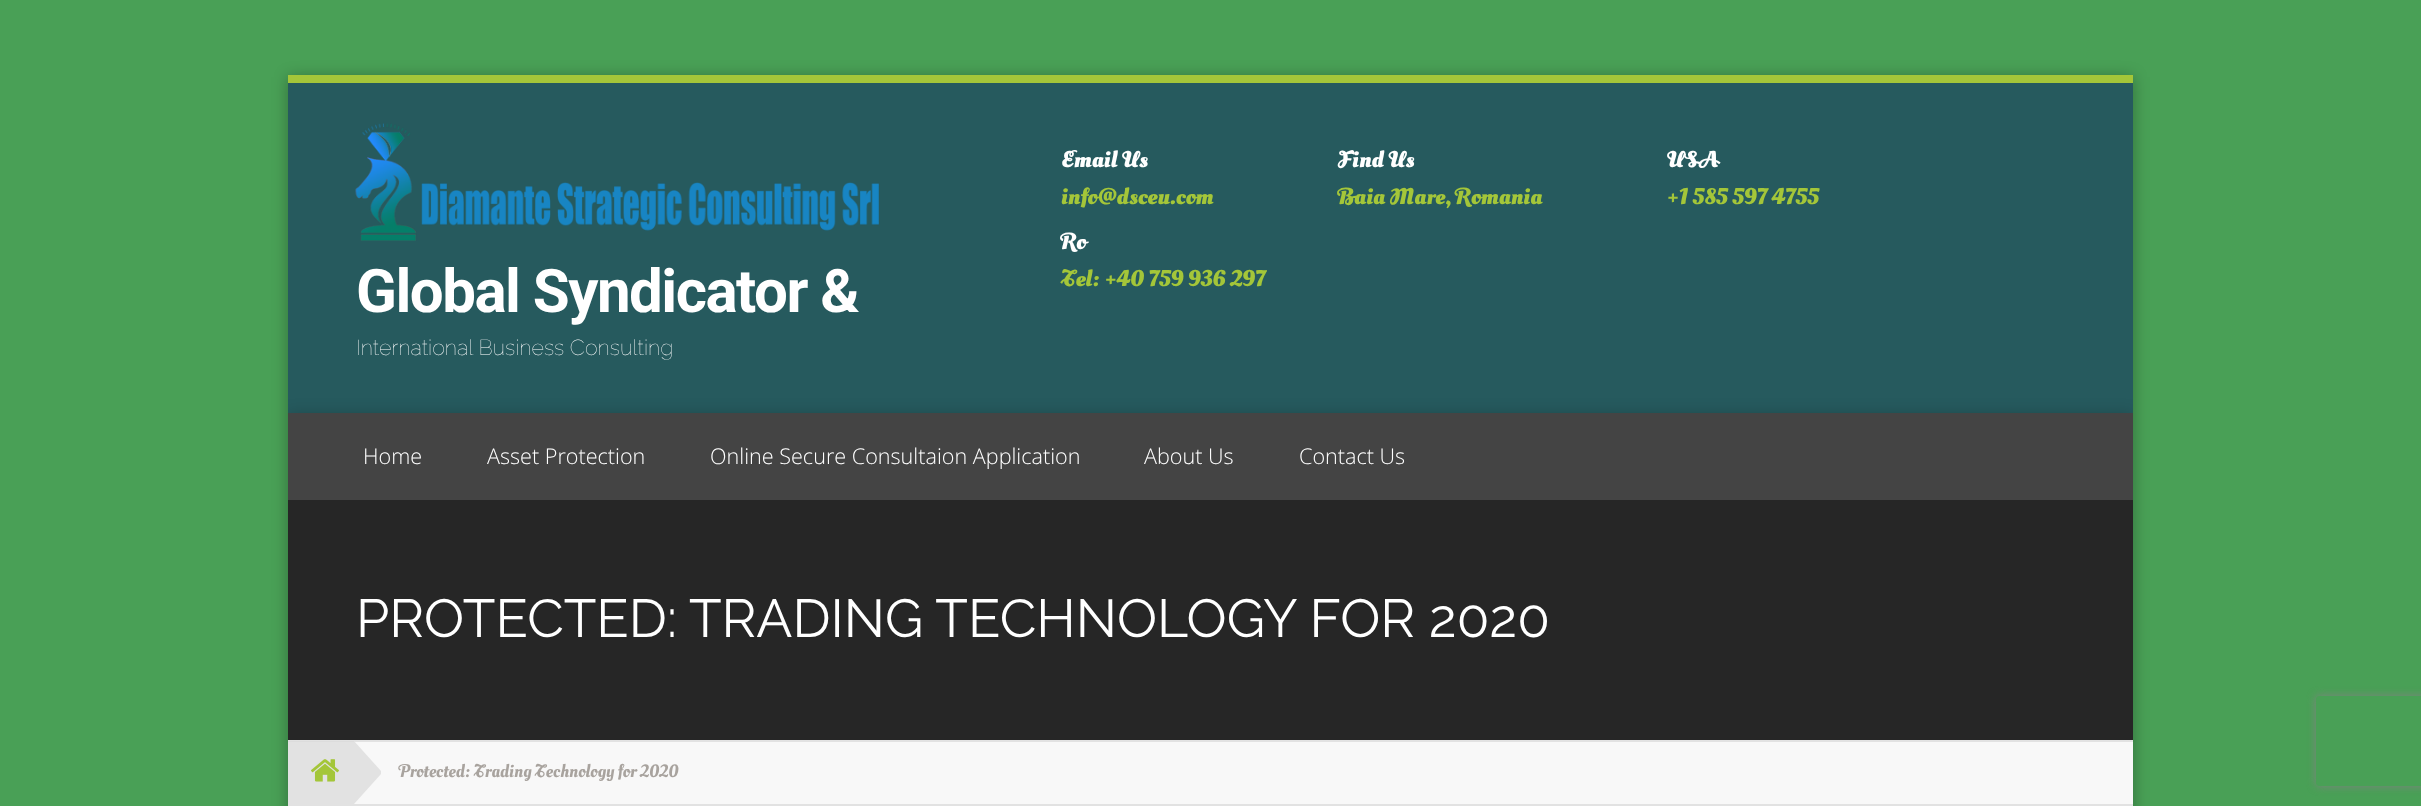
<svg xmlns="http://www.w3.org/2000/svg" width="2421" height="806" viewBox="0 0 2421 806">
  <defs>
    <clipPath id="clip1"><path d="M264 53H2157V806H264ZM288 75H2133V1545H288Z" clip-rule="evenodd"/></clipPath>
    <clipPath id="clip2"><path d="M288 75h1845v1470H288z"/></clipPath>
    <clipPath id="clip3"><path d="M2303 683H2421V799H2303ZM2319 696H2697C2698.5 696 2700 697.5 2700 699V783C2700 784.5 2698.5 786 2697 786H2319C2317.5 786 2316 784.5 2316 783V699C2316 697.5 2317.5 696 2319 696Z" clip-rule="evenodd"/></clipPath>
  </defs>
  <rect width="100%" height="100%" fill="#49a056"/>
  <path d="M288 83h1845v330H288z" fill="#265a5e"/>
  <path d="M288 75h1845v8H288z" fill="#a4c639"/>
  <g clip-path="url(#clip1)">
    <path d="M288 77h1845v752H288z" fill="#0000004d" filter="blur(7.5px)"/>
  </g>
  <image x="355" y="123" width="524" height="118" href="img/1.png"/>
  <g clip-path="url(#clip2)">
    <path d="M288 414h1845v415H288z" fill="#00000033" filter="blur(7.5px)"/>
  </g>
  <path d="M288 413h1845v87H288z" fill="#444"/>
  <path d="M288 500h1845v240H288z" fill="#262626"/>
  <path d="M354 742h1779v62H354z" fill="#f8f8f8"/>
  <path d="M288 742h66v62H288z" fill="#e2e2e2"/>
  <path d="M288 740h1845v2H288z" fill="#e2e2e2"/>
  <path d="M288 741h66v1H288z" fill="#dcdcdc"/>
  <path d="M288 804h1845v2H288z" fill="#e2e2e2"/>
  <image x="311" y="759" width="28" height="23" href="img/2.png"/>
  <path d="M354 804V741L381 771V774Z" fill="#e2e2e2"/>
  <g clip-path="url(#clip3)">
    <rect x="2316" y="696" width="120" height="90" rx="3" fill="#808080" filter="blur(4px)"/>
  </g>
  <text x="1061" y="167" font-family="Oleo Script Swash Caps" font-size="22.75" font-weight="bold" fill="#fff">Email Us</text>
  <text x="1061" y="204" font-family="Oleo Script Swash Caps" font-size="22.75" font-weight="bold" fill="#a4c639">info@dsceu.com</text>
  <text x="1338" y="167" font-family="Oleo Script Swash Caps" font-size="22.75" font-weight="bold" fill="#fff">Find Us</text>
  <text x="1338" y="204" font-family="Oleo Script Swash Caps" font-size="22.75" font-weight="bold" fill="#a4c639">Baia Mare, Romania</text>
  <text x="1667" y="167" font-family="Oleo Script Swash Caps" font-size="22.75" font-weight="bold" fill="#fff">USA</text>
  <text x="1667" y="204" font-family="Oleo Script Swash Caps" font-size="22.75" font-weight="bold" fill="#a4c639">+1 585 597 4755</text>
  <text x="1061" y="249" font-family="Oleo Script Swash Caps" font-size="22.75" font-weight="bold" fill="#fff">Ro</text>
  <text x="1061" y="286" font-family="Oleo Script Swash Caps" font-size="22.75" font-weight="bold" fill="#a4c639">Tel: +40 759 936 297</text>
  <text x="356" y="312" font-family="Roboto" font-size="60" font-weight="bold" letter-spacing="-1.5" fill="#fff">Global Syndicator &amp;</text>
  <text x="356" y="355" font-family="Raleway" font-size="21.6" font-weight="100" fill="#fff">International Business Consulting</text>
  <g font-family="Open Sans" font-size="21.6" font-weight="300" fill="#fff">
    <text x="363" y="464">Home</text>
    <text x="487" y="464">Asset Protection</text>
    <text x="710" y="464">Online Secure Consultaion Application</text>
    <text x="1144" y="464">About Us</text>
    <text x="1299" y="464">Contact Us</text>
  </g>
  <text x="356" y="637" font-family="Raleway" font-size="53.4" fill="#fff">PROTECTED: TRADING TECHNOLOGY FOR 2020</text>
  <text x="399" y="777" font-family="Oleo Script Swash Caps" font-size="18" fill="#a8a39e">Protected: Trading Technology for 2020</text>
</svg>
